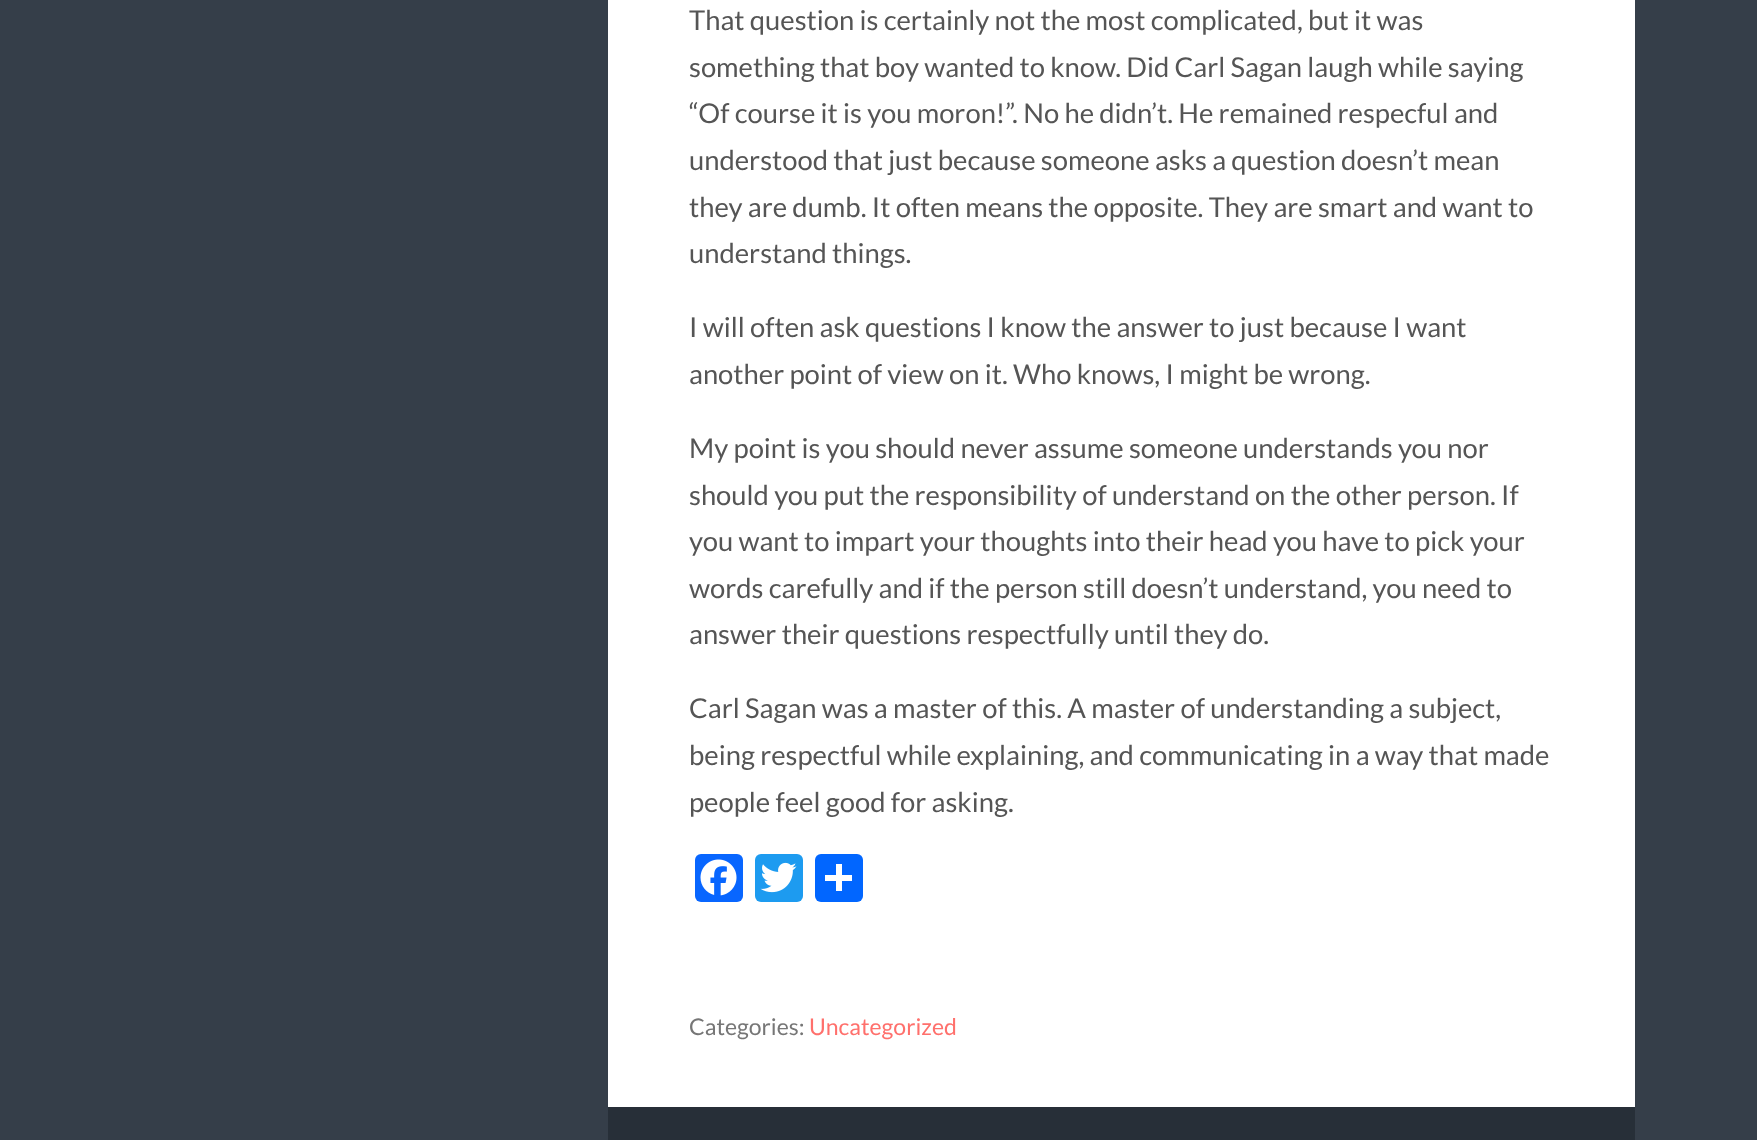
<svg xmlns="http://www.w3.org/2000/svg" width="1757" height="1140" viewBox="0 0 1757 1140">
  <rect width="100%" height="100%" fill="#353e49"/>
  <path d="M608 0h1027v1107H608z" fill="#fff"/>
  <rect x="695" y="854" width="48" height="48" rx="6" fill="#0866ff"/>
  <image x="700" y="859" width="37" height="37" href="img/1.png"/>
  <rect x="755" y="854" width="48" height="48" rx="6" fill="#1d9bf0"/>
  <image x="760" y="862" width="37" height="31" href="img/2.png"/>
  <rect x="815" y="854" width="48" height="48" rx="6" fill="#0166ff"/>
  <path d="M836 864h6v27H836z" fill="#fff"/>
  <path d="M825 875h27v6H825z" fill="#fff"/>
  <path d="M608 1107h1027v33H608z" fill="#272f38"/>
  <g font-family="Lato" font-size="27.4" fill="#555">
    <text x="689" y="30">That question is certainly not the most complicated, but it was</text>
    <text x="689" y="77">something that boy wanted to know. Did Carl Sagan laugh while saying</text>
    <text x="689" y="123">“Of course it is you moron!”. No he didn’t. He remained respecful and</text>
    <text x="689" y="170">understood that just because someone asks a question doesn’t mean</text>
    <text x="689" y="217">they are dumb. It often means the opposite. They are smart and want to</text>
    <text x="689" y="263">understand things.</text>
    <text x="689" y="337">I will often ask questions I know the answer to just because I want</text>
    <text x="689" y="384">another point of view on it. Who knows, I might be wrong.</text>
    <text x="689" y="458">My point is you should never assume someone understands you nor</text>
    <text x="689" y="505">should you put the responsibility of understand on the other person. If</text>
    <text x="689" y="551">you want to impart your thoughts into their head you have to pick your</text>
    <text x="689" y="598">words carefully and if the person still doesn’t understand, you need to</text>
    <text x="689" y="644">answer their questions respectfully until they do.</text>
    <text x="689" y="718">Carl Sagan was a master of this. A master of understanding a subject,</text>
    <text x="689" y="765">being respectful while explaining, and communicating in a way that made</text>
    <text x="689" y="812">people feel good for asking.</text>
  </g>
  <text x="689" y="1035" font-family="Lato" font-size="23" fill="#767676">Categories:</text>
  <text x="809" y="1035" font-family="Lato" font-size="23" fill="#ff706c">Uncategorized</text>
</svg>
